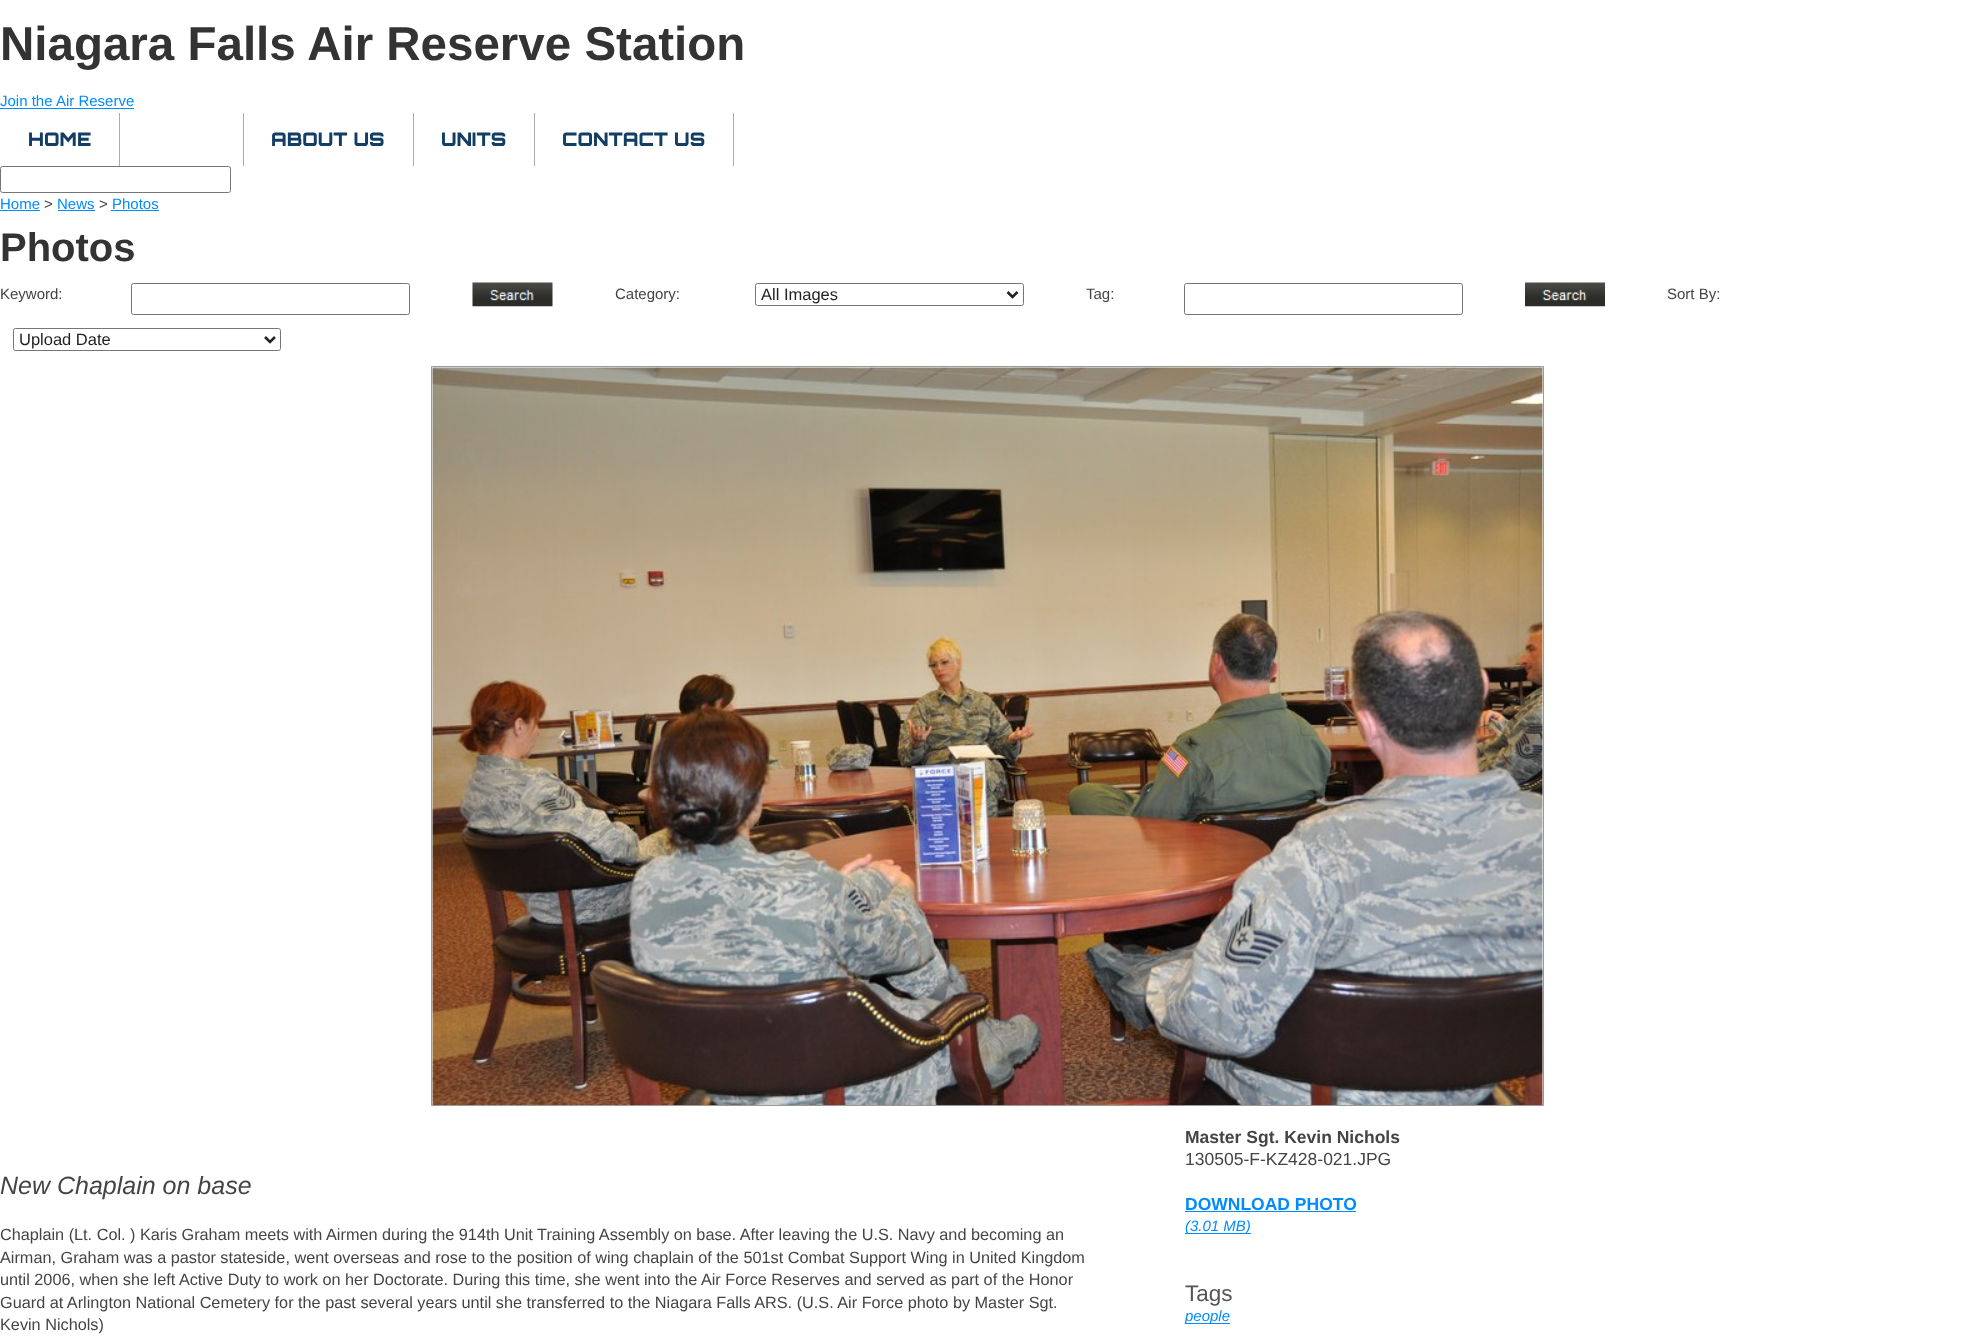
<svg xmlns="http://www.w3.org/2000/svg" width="1975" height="1343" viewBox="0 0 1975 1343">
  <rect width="100%" height="100%" fill="#fff"/>
  <path d="M0 108h134v1H0z" fill="#028bff"/>
  <path d="M119 113h1v53H119z" fill="#ababab"/>
  <path d="M243 113h1v53H243z" fill="#ababab"/>
  <path d="M413 113h1v53H413z" fill="#ababab"/>
  <path d="M534 113h1v53H534z" fill="#ababab"/>
  <path d="M733 113h1v53H733z" fill="#ababab"/>
  <rect x="0.5" y="166.5" width="230" height="26" rx="2" fill="none" stroke="#767676"/>
  <path d="M0 210h40v1H0z" fill="#028bff"/>
  <path d="M58 210h37v1H58z" fill="#028bff"/>
  <path d="M111 210h48v1H111z" fill="#028bff"/>
  <rect x="131.5" y="283.5" width="278" height="31" rx="2" fill="none" stroke="#767676"/>
  <image x="472" y="282" width="81" height="25" href="img/1.png"/>
  <rect x="755.5" y="283.5" width="268" height="22" rx="2" fill="none" stroke="#767676"/>
  <path d="M1007.5 292L1012.5 297L1017.5 292" fill="none" stroke="#222" stroke-width="2.5"/>
  <rect x="1184.5" y="283.5" width="278" height="31" rx="2" fill="none" stroke="#767676"/>
  <image x="1525" y="282" width="80" height="25" href="img/2.png"/>
  <rect x="13.5" y="328.5" width="267" height="22" rx="2" fill="none" stroke="#767676"/>
  <path d="M265 337L270 342L275 337" fill="none" stroke="#222" stroke-width="2.5"/>
  <path d="M431.5 366.5h1112v739H431.5z" fill="none" stroke="#999"/>
  <image x="432" y="367" width="1111" height="738" href="img/3.png"/>
  <path d="M1185 1211h171v1H1185z" fill="#028bff"/>
  <path d="M1185 1233h66v1H1185z" fill="#028bff"/>
  <path d="M1185 1323h45v1H1185z" fill="#028bff"/>
  <text x="0" y="60" font-family="Liberation Sans" font-size="47.5" font-weight="bold" fill="#333">Niagara Falls Air Reserve Station</text>
  <text x="0" y="106" font-family="Liberation Sans" font-size="15" fill="#028bff">Join the Air Reserve</text>
  <g font-family="Orbitron" font-size="18.75" font-weight="900" fill="#123d64">
    <text x="28" y="146">HOME</text>
    <text x="271" y="146">ABOUT US</text>
    <text x="441" y="146">UNITS</text>
    <text x="562" y="146">CONTACT US</text>
  </g>
  <text x="0" y="209" font-family="Liberation Sans" font-size="15" fill="#028bff">Home</text>
  <text x="44" y="209" font-family="Liberation Sans" font-size="15" fill="#444">&gt;</text>
  <text x="57" y="209" font-family="Liberation Sans" font-size="15" fill="#028bff">News</text>
  <text x="99" y="209" font-family="Liberation Sans" font-size="15" fill="#444">&gt;</text>
  <text x="112" y="209" font-family="Liberation Sans" font-size="15" fill="#028bff">Photos</text>
  <text x="0" y="261" font-family="Liberation Sans" font-size="40" font-weight="bold" fill="#333">Photos</text>
  <g font-family="Liberation Sans" font-size="15" fill="#444">
    <text x="0" y="299">Keyword:</text>
    <text x="615" y="299">Category:</text>
  </g>
  <text x="761" y="300" font-family="Liberation Sans" font-size="16.5" fill="#222">All Images</text>
  <g font-family="Liberation Sans" font-size="15" fill="#444">
    <text x="1086" y="299">Tag:</text>
    <text x="1667" y="299">Sort By:</text>
  </g>
  <text x="19" y="345" font-family="Liberation Sans" font-size="16.5" fill="#222">Upload Date</text>
  <text x="0" y="1194" font-family="Liberation Sans" font-size="25" font-style="italic" fill="#444">New Chaplain on base</text>
  <g font-family="Liberation Sans" font-size="16.25" fill="#444">
    <text x="0" y="1240">Chaplain (Lt. Col. ) Karis Graham meets with Airmen during the 914th Unit Training Assembly on base. After leaving the U.S. Navy and becoming an</text>
    <text x="0" y="1263">Airman, Graham was a pastor stateside, went overseas and rose to the position of wing chaplain of the 501st Combat Support Wing in United Kingdom</text>
    <text x="0" y="1285">until 2006, when she left Active Duty to work on her Doctorate. During this time, she went into the Air Force Reserves and served as part of the Honor</text>
    <text x="0" y="1308">Guard at Arlington National Cemetery for the past several years until she transferred to the Niagara Falls ARS. (U.S. Air Force photo by Master Sgt.</text>
    <text x="0" y="1330">Kevin Nichols)</text>
  </g>
  <text x="1185" y="1143" font-family="Liberation Sans" font-size="17.5" font-weight="bold" fill="#444">Master Sgt. Kevin Nichols</text>
  <text x="1185" y="1165" font-family="Liberation Sans" font-size="17.5" fill="#444">130505-F-KZ428-021.JPG</text>
  <text x="1185" y="1210" font-family="Liberation Sans" font-size="17.5" font-weight="bold" fill="#028bff">DOWNLOAD PHOTO</text>
  <text x="1185" y="1231" font-family="Liberation Sans" font-size="15" font-style="italic" fill="#028bff">(3.01 MB)</text>
  <text x="1185" y="1301" font-family="Liberation Sans" font-size="22.5" fill="#555">Tags</text>
  <text x="1185" y="1321" font-family="Liberation Sans" font-size="15" font-style="italic" fill="#028bff">people</text>
</svg>
